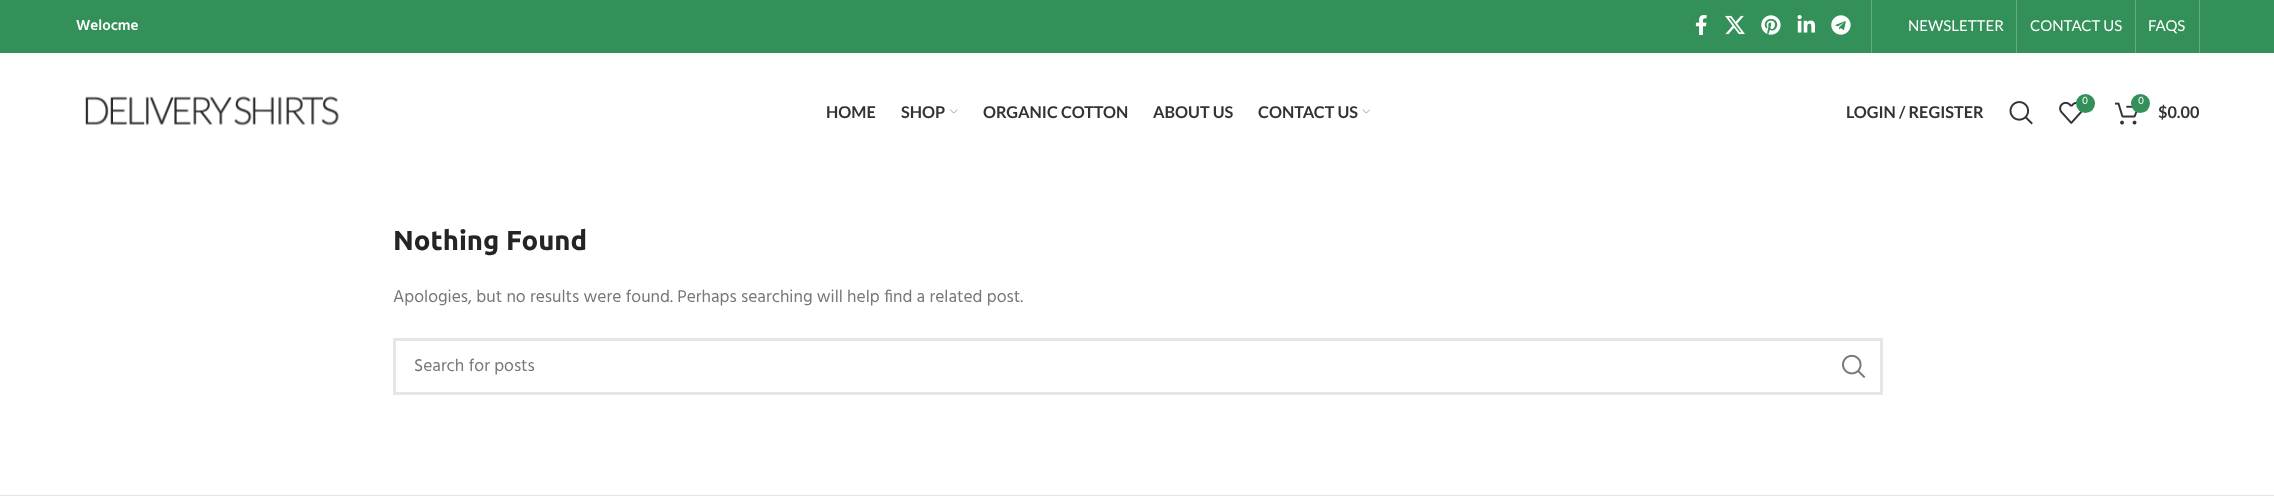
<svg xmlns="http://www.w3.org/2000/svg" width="2274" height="500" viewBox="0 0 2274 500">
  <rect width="100%" height="100%" fill="#fff"/>
  <path d="M0 0h2274v53H0z" fill="#339059"/>
  <image x="1695" y="15" width="12" height="20" href="img/1.png"/>
  <image x="1725" y="15" width="20" height="20" href="img/2.png"/>
  <image x="1761" y="15" width="20" height="20" href="img/3.png"/>
  <image x="1797" y="15" width="18" height="18" href="img/4.png"/>
  <image x="1831" y="15" width="20" height="20" href="img/5.png"/>
  <path d="M1871 0h1v53H1871z" fill="#66ac83"/>
  <path d="M2016 0h1v53H2016z" fill="#66ac83"/>
  <path d="M2135 0h1v53H2135z" fill="#66ac83"/>
  <path d="M2199 0h1v53H2199z" fill="#66ac83"/>
  <image x="85" y="96" width="254" height="30" href="img/6.png"/>
  <image x="950" y="109" width="8" height="5" href="img/7.png"/>
  <image x="1362" y="109" width="8" height="5" href="img/8.png"/>
  <image x="2009" y="101" width="24" height="24" href="img/9.png"/>
  <image x="2059" y="101" width="24" height="23" href="img/10.png"/>
  <circle cx="2085.5" cy="103.5" r="9.5" fill="#339059"/>
  <image x="2115" y="102" width="23" height="23" href="img/11.png"/>
  <circle cx="2140.5" cy="103.5" r="9.5" fill="#339059"/>
  <path d="M394.5 339.5h1487v54H394.5z" fill="none" stroke="#e6e6e6" stroke-width="3"/>
  <image x="1842" y="354" width="24" height="24" href="img/12.png"/>
  <path d="M0 495h2274v1H0z" fill="#e4e4e4"/>
  <text x="76" y="30" font-family="Hind" font-size="15" font-weight="600" fill="#fff">Welocme</text>
  <g font-family="Lato" font-size="15" fill="#fff">
    <text x="1908" y="31">NEWSLETTER</text>
    <text x="2030" y="31">CONTACT US</text>
    <text x="2148" y="31">FAQS</text>
  </g>
  <g font-family="Lato" font-size="16.25" font-weight="bold" fill="#333">
    <text x="826" y="118">HOME</text>
    <text x="901" y="118">SHOP</text>
    <text x="983" y="118">ORGANIC COTTON</text>
    <text x="1153" y="118">ABOUT US</text>
    <text x="1258" y="118">CONTACT US</text>
    <text x="1846" y="118">LOGIN / REGISTER</text>
  </g>
  <g font-family="Hind" font-size="11" fill="#fff">
    <text x="2082" y="104">0</text>
    <text x="2138" y="104">0</text>
  </g>
  <text x="2158" y="118" font-family="Lato" font-size="16.25" font-weight="bold" fill="#333">$0.00</text>
  <text x="393" y="250" font-family="Ubuntu" font-size="27.5" font-weight="bold" fill="#242424">Nothing Found</text>
  <g font-family="Hind" font-size="17.5" fill="#777">
    <text x="393" y="302">Apologies, but no results were found. Perhaps searching will help find a related post.</text>
    <text x="414" y="371">Search for posts</text>
  </g>
</svg>
